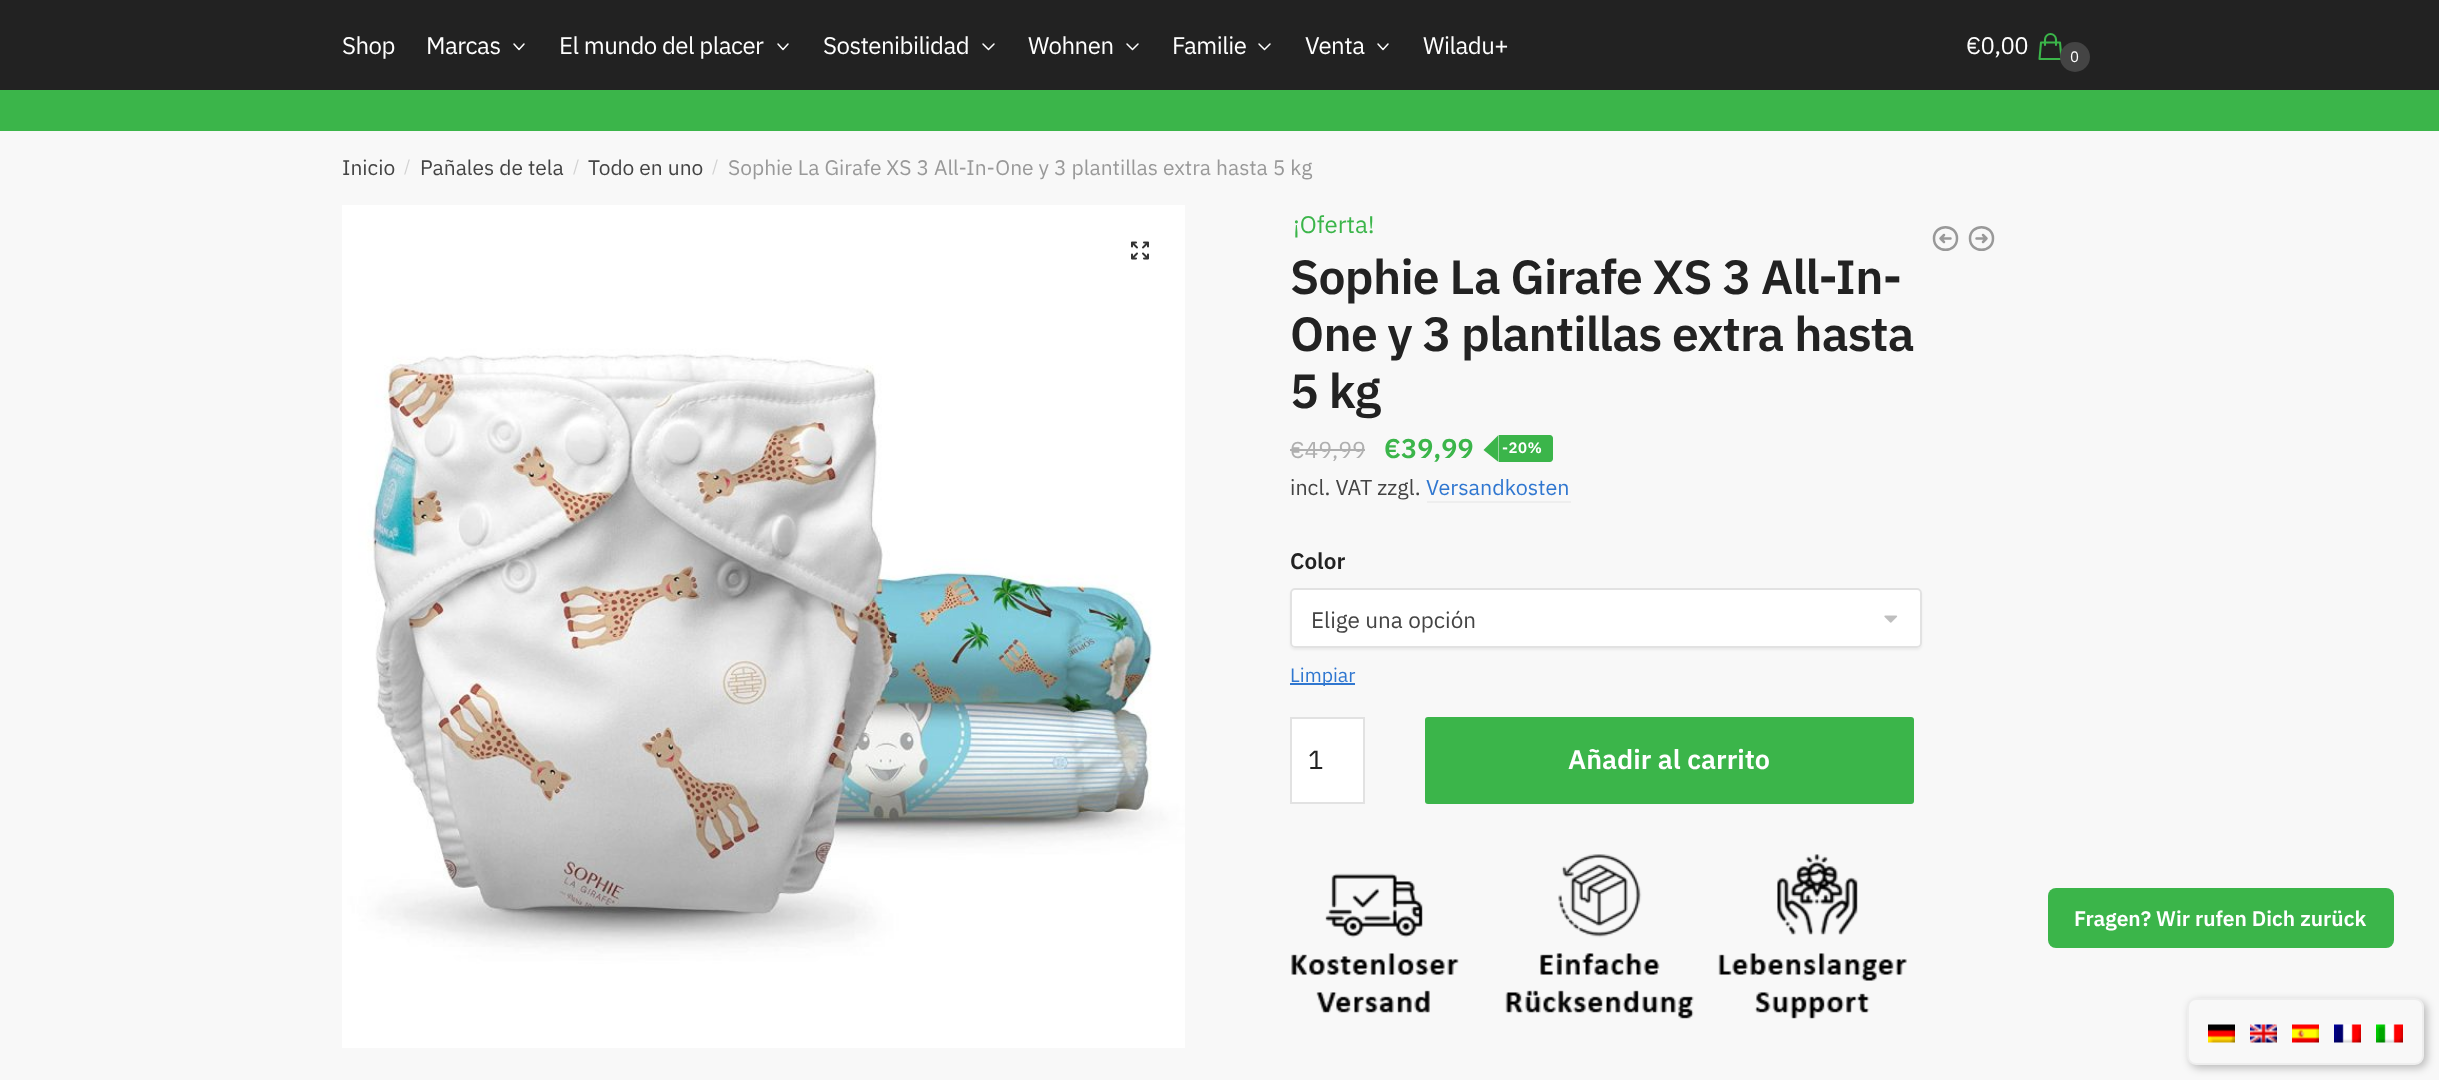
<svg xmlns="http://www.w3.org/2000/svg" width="2439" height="1080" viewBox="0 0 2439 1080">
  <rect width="100%" height="100%" fill="#3bb54a"/>
  <path d="M0 0h2439v90H0z" fill="#222"/>
  <path d="M524 44L519 49.5L514 44" fill="none" stroke="#fff" stroke-width="1.5" stroke-linecap="round" stroke-linejoin="round"/>
  <path d="M788 44L783 49.5L778 44" fill="none" stroke="#fff" stroke-width="1.5" stroke-linecap="round" stroke-linejoin="round"/>
  <path d="M994 44L988.5 49.5L983 44" fill="none" stroke="#fff" stroke-width="1.5" stroke-linecap="round" stroke-linejoin="round"/>
  <path d="M1138 44L1132.5 49.5L1127 44" fill="none" stroke="#fff" stroke-width="1.5" stroke-linecap="round" stroke-linejoin="round"/>
  <path d="M1270 44L1264.5 49.5L1259 44" fill="none" stroke="#fff" stroke-width="1.5" stroke-linecap="round" stroke-linejoin="round"/>
  <path d="M1388 44L1383 49.5L1378 44" fill="none" stroke="#fff" stroke-width="1.5" stroke-linecap="round" stroke-linejoin="round"/>
  <path d="M2056 45V39.5C2056 36.5 2053.5 34 2050.5 34C2047.5 34 2045 36.5 2045 39.5V45M2041 42.5H2060L2061.5 59H2039.5Z" fill="none" stroke="#3bb54a" stroke-width="2.1" stroke-linecap="round" stroke-linejoin="round"/>
  <circle cx="2075" cy="57" r="15" fill="#444"/>
  <path d="M0 131h2439v949H0z" fill="#f8f8f8"/>
  <image x="342" y="205" width="843" height="843" href="img/1.png"/>
  <image x="1131" y="241" width="18" height="19" href="img/2.png"/>
  <path d="M1944 242L1940.5 238.5M1940.5 238.5L1944 235M1940.5 238.5H1950.5M1934 238.5C1934 223.5 1957 223.5 1957 238.5C1957 253.5 1934 253.5 1934 238.5ZM1983 235L1986.5 238.5M1986.5 238.5L1983 242M1986.5 238.5H1976.5M1993 238.5C1993 253.5 1970 253.5 1970 238.5C1970 223.5 1993 223.5 1993 238.5Z" fill="none" stroke="#999" stroke-width="2.5" stroke-linecap="round" stroke-linejoin="round"/>
  <path d="M1290 449h75v2H1290z" fill="#afafaf"/>
  <path d="M1499 435H1550C1551.5 435 1553 436.5 1553 438V459C1553 460.5 1551.5 462 1550 462H1499Z" fill="#3bb54a"/>
  <path d="M1498.5 435V462L1483.5 450Z" fill="#3bb54a"/>
  <path d="M1427 501h144v2H1427z" fill="#eee"/>
  <rect x="1290" y="590" width="632" height="60" rx="5" fill="#0000000d" filter="blur(1px)"/>
  <rect x="1290" y="588" width="632" height="60" rx="5" fill="#fff"/>
  <image x="1884" y="615" width="14" height="8" href="img/3.png"/>
  <rect x="1291" y="589" width="630" height="58" rx="4" fill="none" stroke="#e2e2e2" stroke-width="2"/>
  <path d="M1290 683h65v2H1290z" fill="#3077d0"/>
  <path d="M1291 718h73v85H1291z" fill="#fff" stroke="#e2e2e2" stroke-width="2"/>
  <rect x="1425" y="717" width="489" height="87" rx="3" fill="#3bb54a"/>
  <image x="1291" y="854" width="616" height="165" href="img/4.png"/>
  <rect x="2048" y="888" width="346" height="60" rx="8" fill="#3bb54a"/>
  <rect x="2190" y="1001" width="237" height="67" rx="9" fill="#00000040" filter="blur(4px)"/>
  <rect x="2188" y="999" width="235" height="65" rx="8" fill="#f8f8f8" stroke="#eee" stroke-width="2"/>
  <image x="2208" y="1024" width="27" height="19" href="img/5.png"/>
  <image x="2250" y="1024" width="27" height="19" href="img/6.png"/>
  <image x="2292" y="1024" width="27" height="19" href="img/7.png"/>
  <image x="2334" y="1024" width="27" height="19" href="img/8.png"/>
  <image x="2376" y="1024" width="27" height="19" href="img/9.png"/>
  <g font-family="IBM Plex Sans" font-size="24" letter-spacing="-0.5" fill="#fff">
    <text x="342" y="54">Shop</text>
    <text x="426" y="54">Marcas</text>
    <text x="559" y="54">El mundo del placer</text>
    <text x="823" y="54">Sostenibilidad</text>
    <text x="1028" y="54">Wohnen</text>
    <text x="1172" y="54">Familie</text>
    <text x="1305" y="54">Venta</text>
    <text x="1423" y="54">Wiladu+</text>
    <text x="1966" y="54">€0,00</text>
  </g>
  <text x="2070" y="62" font-family="IBM Plex Sans" font-size="15" letter-spacing="-0.5" fill="#fff">0</text>
  <text x="342" y="175" font-family="IBM Plex Sans" font-size="21" fill="#444">Inicio</text>
  <text x="404" y="172" font-family="IBM Plex Sans" font-size="17" fill="#d2d2d2">/</text>
  <text x="420" y="175" font-family="IBM Plex Sans" font-size="21" fill="#444">Pañales de tela</text>
  <text x="573" y="172" font-family="IBM Plex Sans" font-size="17" fill="#d2d2d2">/</text>
  <text x="588" y="175" font-family="IBM Plex Sans" font-size="21" fill="#444">Todo en uno</text>
  <text x="712" y="172" font-family="IBM Plex Sans" font-size="17" fill="#d2d2d2">/</text>
  <text x="728" y="175" font-family="IBM Plex Sans" font-size="21" fill="#999">Sophie La Girafe XS 3 All-In-One y 3 plantillas extra hasta 5 kg</text>
  <text x="1293" y="233" font-family="IBM Plex Sans" font-size="24" fill="#3bb54a">¡Oferta!</text>
  <g font-family="IBM Plex Sans" font-size="48" font-weight="600" letter-spacing="-0.75" fill="#222">
    <text x="1290" y="294">Sophie La Girafe XS 3 All-In-</text>
    <text x="1290" y="351">One y 3 plantillas extra hasta</text>
    <text x="1290" y="408">5 kg</text>
  </g>
  <text x="1290" y="458" font-family="IBM Plex Sans" font-size="23" fill="#afafaf">€49,99</text>
  <text x="1384" y="458" font-family="IBM Plex Sans" font-size="27" font-weight="600" fill="#3bb54a">€39,99</text>
  <text x="1502" y="453" font-family="IBM Plex Sans" font-size="15" font-weight="600" letter-spacing="0.5" fill="#fff">-20%</text>
  <text x="1290" y="495" font-family="IBM Plex Sans" font-size="21.5" fill="#444">incl. VAT zzgl.</text>
  <text x="1426" y="495" font-family="IBM Plex Sans" font-size="21.5" fill="#3077d0">Versandkosten</text>
  <text x="1290" y="569" font-family="IBM Plex Sans" font-size="22.5" font-weight="600" fill="#222">Color</text>
  <text x="1311" y="628" font-family="IBM Plex Sans" font-size="22.5" fill="#444">Elige una opción</text>
  <text x="1290" y="682" font-family="IBM Plex Sans" font-size="19.5" fill="#3077d0">Limpiar</text>
  <text x="1308" y="769" font-family="IBM Plex Sans" font-size="26" fill="#222">1</text>
  <text x="1568" y="769" font-family="IBM Plex Sans" font-size="27" font-weight="600" fill="#fff">Añadir al carrito</text>
  <text x="2074" y="926" font-family="IBM Plex Sans" font-size="21" font-weight="600" fill="#fff">Fragen? Wir rufen Dich zurück</text>
</svg>
